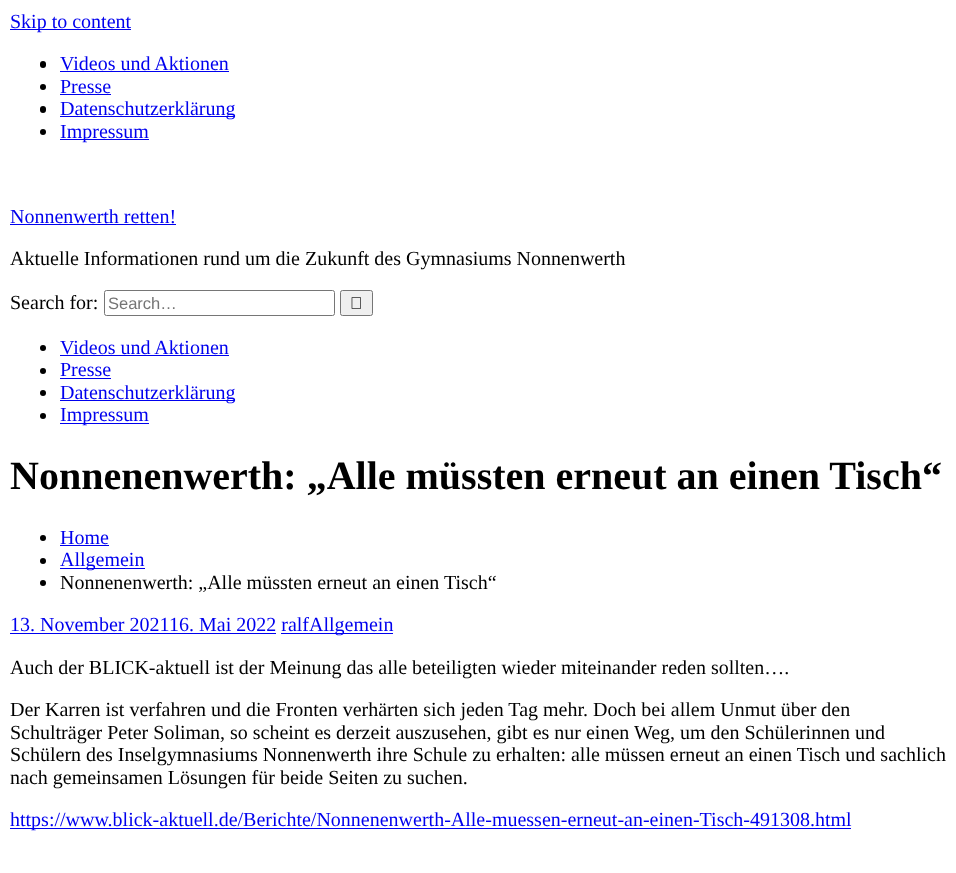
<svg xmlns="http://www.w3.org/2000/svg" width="956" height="873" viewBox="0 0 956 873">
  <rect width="100%" height="100%" fill="#fff"/>
  <path d="M10 29h121v1H10z" fill="#00e"/>
  <rect x="40" y="61" width="6" height="7" rx="3" fill="#000"/>
  <path d="M60 71h169v1H60z" fill="#00e"/>
  <circle cx="43" cy="87" r="3" fill="#000"/>
  <path d="M60 94h51v1H60z" fill="#00e"/>
  <rect x="40" y="106" width="6" height="7" rx="3" fill="#000"/>
  <path d="M60 116h175v1H60z" fill="#00e"/>
  <circle cx="43" cy="132" r="3" fill="#000"/>
  <path d="M60 139h89v1H60z" fill="#00e"/>
  <path d="M10 224h166v1H10z" fill="#00e"/>
  <rect x="104.5" y="290.5" width="230" height="25" rx="2" fill="none" stroke="#767676"/>
  <rect x="340.5" y="290.5" width="32" height="25" rx="2" fill="#efefef" stroke="#767676"/>
  <image x="351" y="297" width="10" height="12" href="img/1.png"/>
  <circle cx="43" cy="348" r="3" fill="#000"/>
  <path d="M60 355h169v1H60z" fill="#00e"/>
  <circle cx="43" cy="371" r="3" fill="#000"/>
  <path d="M60 378h51v1H60z" fill="#00e"/>
  <circle cx="43" cy="393" r="3" fill="#000"/>
  <path d="M60 400h175v1H60z" fill="#00e"/>
  <circle cx="43" cy="416" r="3" fill="#000"/>
  <path d="M60 423h89v1H60z" fill="#00e"/>
  <circle cx="43" cy="538" r="3" fill="#000"/>
  <path d="M60 545h49v1H60z" fill="#00e"/>
  <circle cx="43" cy="561" r="3" fill="#000"/>
  <path d="M60 568h85v1H60z" fill="#00e"/>
  <circle cx="43" cy="583" r="3" fill="#000"/>
  <path d="M10 633h266v1H10z" fill="#00e"/>
  <path d="M281 633h112v1H281z" fill="#00e"/>
  <path d="M10 828h841v1H10z" fill="#00e"/>
  <g font-family="Liberation Serif" font-size="20" fill="#00e">
    <text x="10" y="28">Skip to content</text>
    <text x="60" y="70">Videos und Aktionen</text>
    <text x="60" y="93">Presse</text>
    <text x="60" y="115">Datenschutzerklärung</text>
    <text x="60" y="138">Impressum</text>
    <text x="10" y="223">Nonnenwerth retten!</text>
  </g>
  <g font-family="Liberation Serif" font-size="20" fill="#000">
    <text x="10" y="265">Aktuelle Informationen rund um die Zukunft des Gymnasiums Nonnenwerth</text>
    <text x="10" y="309">Search for:</text>
  </g>
  <text x="108" y="309" font-family="Liberation Sans" font-size="16.5" fill="#757575">Search…</text>
  <g font-family="Liberation Serif" font-size="20" fill="#00e">
    <text x="60" y="354">Videos und Aktionen</text>
    <text x="60" y="376">Presse</text>
    <text x="60" y="399">Datenschutzerklärung</text>
    <text x="60" y="421">Impressum</text>
  </g>
  <text x="10" y="489" font-family="Liberation Serif" font-size="40" font-weight="bold" fill="#000">Nonnenenwerth: „Alle müssten erneut an einen Tisch“</text>
  <g font-family="Liberation Serif" font-size="20" fill="#00e">
    <text x="60" y="544">Home</text>
    <text x="60" y="566">Allgemein</text>
  </g>
  <text x="60" y="589" font-family="Liberation Serif" font-size="20" fill="#000">Nonnenenwerth: „Alle müssten erneut an einen Tisch“</text>
  <g font-family="Liberation Serif" font-size="20" fill="#00e">
    <text x="10" y="631">13. November 2021</text>
    <text x="169" y="631">16. Mai 2022 ralf</text>
    <text x="309" y="631">Allgemein</text>
  </g>
  <g font-family="Liberation Serif" font-size="20" fill="#000">
    <text x="10" y="674">Auch der BLICK-aktuell ist der Meinung das alle beteiligten wieder miteinander reden sollten….</text>
    <text x="10" y="716">Der Karren ist verfahren und die Fronten verhärten sich jeden Tag mehr. Doch bei allem Unmut über den</text>
    <text x="10" y="739">Schulträger Peter Soliman, so scheint es derzeit auszusehen, gibt es nur einen Weg, um den Schülerinnen und</text>
    <text x="10" y="761">Schülern des Inselgymnasiums Nonnenwerth ihre Schule zu erhalten: alle müssen erneut an einen Tisch und sachlich</text>
    <text x="10" y="784">nach gemeinsamen Lösungen für beide Seiten zu suchen.</text>
  </g>
  <text x="10" y="826" font-family="Liberation Serif" font-size="20" fill="#00e">https://www.blick-aktuell.de/Berichte/Nonnenenwerth-Alle-muessen-erneut-an-einen-Tisch-491308.html</text>
</svg>
